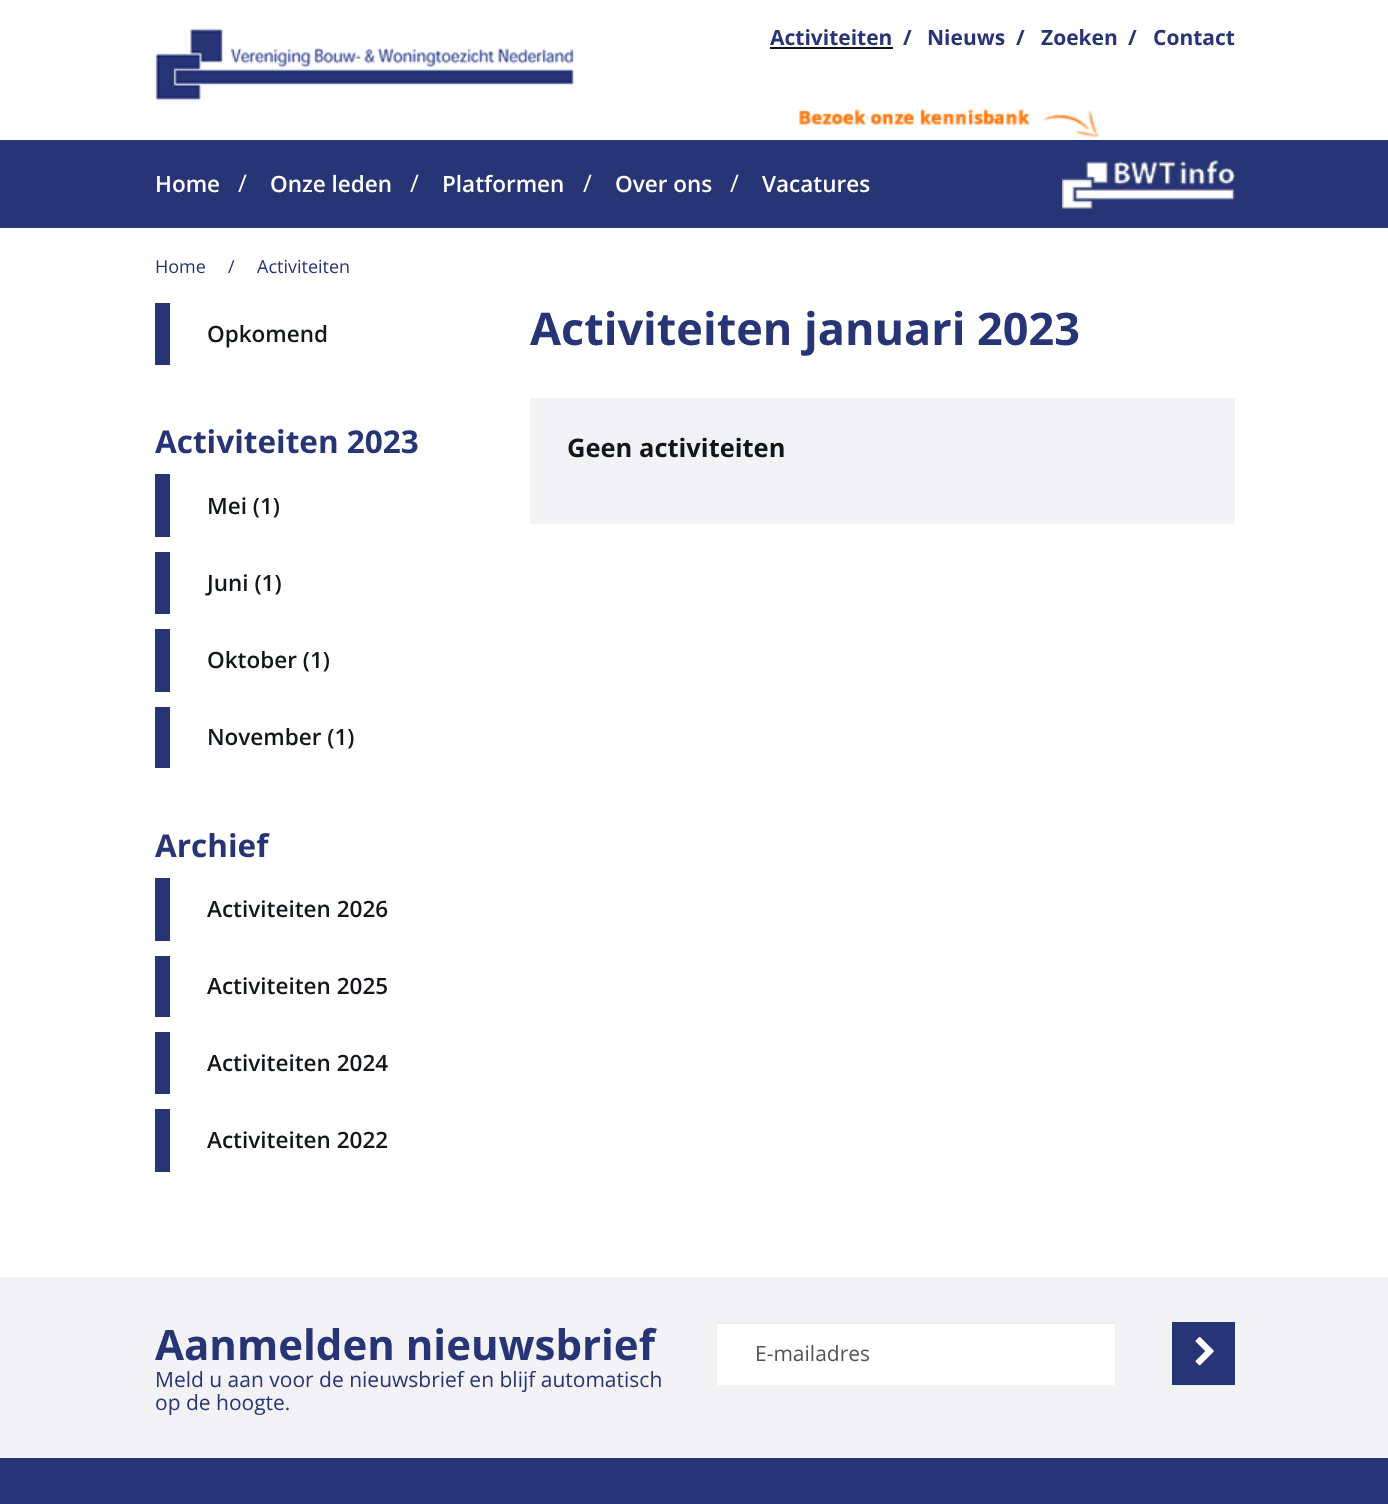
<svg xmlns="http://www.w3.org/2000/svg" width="1388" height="1504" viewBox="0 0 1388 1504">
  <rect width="100%" height="100%" fill="#fff"/>
  <image x="155" y="28" width="419" height="73" href="img/1.png"/>
  <path d="M770 47h123v2H770z" fill="#11161b"/>
  <path d="M0 140h1388v88H0z" fill="#273475"/>
  <image x="799" y="109" width="301" height="29" href="img/2.png"/>
  <image x="1062" y="160" width="173" height="49" href="img/3.png"/>
  <path d="M155 303h15v62H155z" fill="#273475"/>
  <path d="M155 474h15v63H155z" fill="#273475"/>
  <path d="M155 552h15v62H155z" fill="#273475"/>
  <path d="M155 629h15v63H155z" fill="#273475"/>
  <path d="M155 707h15v61H155z" fill="#273475"/>
  <path d="M155 878h15v63H155z" fill="#273475"/>
  <path d="M155 956h15v61H155z" fill="#273475"/>
  <path d="M155 1032h15v62H155z" fill="#273475"/>
  <path d="M155 1109h15v63H155z" fill="#273475"/>
  <path d="M530 398h705v126H530z" fill="#f3f3f5"/>
  <path d="M0 1277h1388v181H0z" fill="#f3f3f5"/>
  <path d="M717 1324h398v61H717z" fill="#fff"/>
  <path d="M717 1322h398v2H717z" fill="#ececec"/>
  <path d="M1172 1322h63v63H1172z" fill="#273475"/>
  <image x="1195" y="1337" width="19" height="29" href="img/4.png"/>
  <path d="M0 1458h1388v46H0z" fill="#273475"/>
  <g font-family="Open Sans" font-size="21" font-weight="bold" fill="#273475">
    <text x="770" y="45">Activiteiten</text>
    <text x="903" y="45">/</text>
    <text x="927" y="45">Nieuws</text>
    <text x="1016" y="45">/</text>
    <text x="1041" y="45">Zoeken</text>
    <text x="1128" y="45">/</text>
    <text x="1153" y="45">Contact</text>
  </g>
  <text x="155" y="192" font-family="Open Sans" font-size="22.5" font-weight="600" fill="#fff">Home</text>
  <text x="238" y="192" font-family="Open Sans" font-size="24" fill="#fff">/</text>
  <text x="270" y="192" font-family="Open Sans" font-size="22.5" font-weight="600" fill="#fff">Onze leden</text>
  <text x="410" y="192" font-family="Open Sans" font-size="24" fill="#fff">/</text>
  <text x="442" y="192" font-family="Open Sans" font-size="22.5" font-weight="600" fill="#fff">Platformen</text>
  <text x="583" y="192" font-family="Open Sans" font-size="24" fill="#fff">/</text>
  <text x="615" y="192" font-family="Open Sans" font-size="22.5" font-weight="600" fill="#fff">Over ons</text>
  <text x="730" y="192" font-family="Open Sans" font-size="24" fill="#fff">/</text>
  <text x="762" y="192" font-family="Open Sans" font-size="22.5" font-weight="600" fill="#fff">Vacatures</text>
  <g font-family="Open Sans" font-size="18" fill="#273475">
    <text x="155" y="273">Home</text>
    <text x="228" y="273">/</text>
    <text x="257" y="273">Activiteiten</text>
  </g>
  <text x="207" y="342" font-family="Open Sans" font-size="22.5" font-weight="600" fill="#11161b">Opkomend</text>
  <text x="155" y="453" font-family="Open Sans" font-size="31.5" font-weight="bold" fill="#273475">Activiteiten 2023</text>
  <g font-family="Open Sans" font-size="22.5" font-weight="600" fill="#11161b">
    <text x="207" y="514">Mei (1)</text>
    <text x="207" y="591">Juni (1)</text>
    <text x="207" y="668">Oktober (1)</text>
    <text x="207" y="745">November (1)</text>
  </g>
  <text x="155" y="857" font-family="Open Sans" font-size="31.5" font-weight="bold" fill="#273475">Archief</text>
  <g font-family="Open Sans" font-size="22.5" font-weight="600" fill="#11161b">
    <text x="207" y="917">Activiteiten 2026</text>
    <text x="207" y="994">Activiteiten 2025</text>
    <text x="207" y="1071">Activiteiten 2024</text>
    <text x="207" y="1148">Activiteiten 2022</text>
  </g>
  <text x="530" y="345" font-family="Open Sans" font-size="45" font-weight="bold" fill="#273475">Activiteiten januari 2023</text>
  <text x="567" y="457" font-family="Open Sans" font-size="25.5" font-weight="bold" fill="#11161b">Geen activiteiten</text>
  <text x="155" y="1360" font-family="Open Sans" font-size="42" font-weight="bold" fill="#273475">Aanmelden nieuwsbrief</text>
  <g font-family="Open Sans" font-size="21" fill="#273475">
    <text x="155" y="1387">Meld u aan voor de nieuwsbrief en blijf automatisch</text>
    <text x="155" y="1410">op de hoogte.</text>
  </g>
  <text x="755" y="1361" font-family="Open Sans" font-size="21" fill="#555">E-mailadres</text>
</svg>
